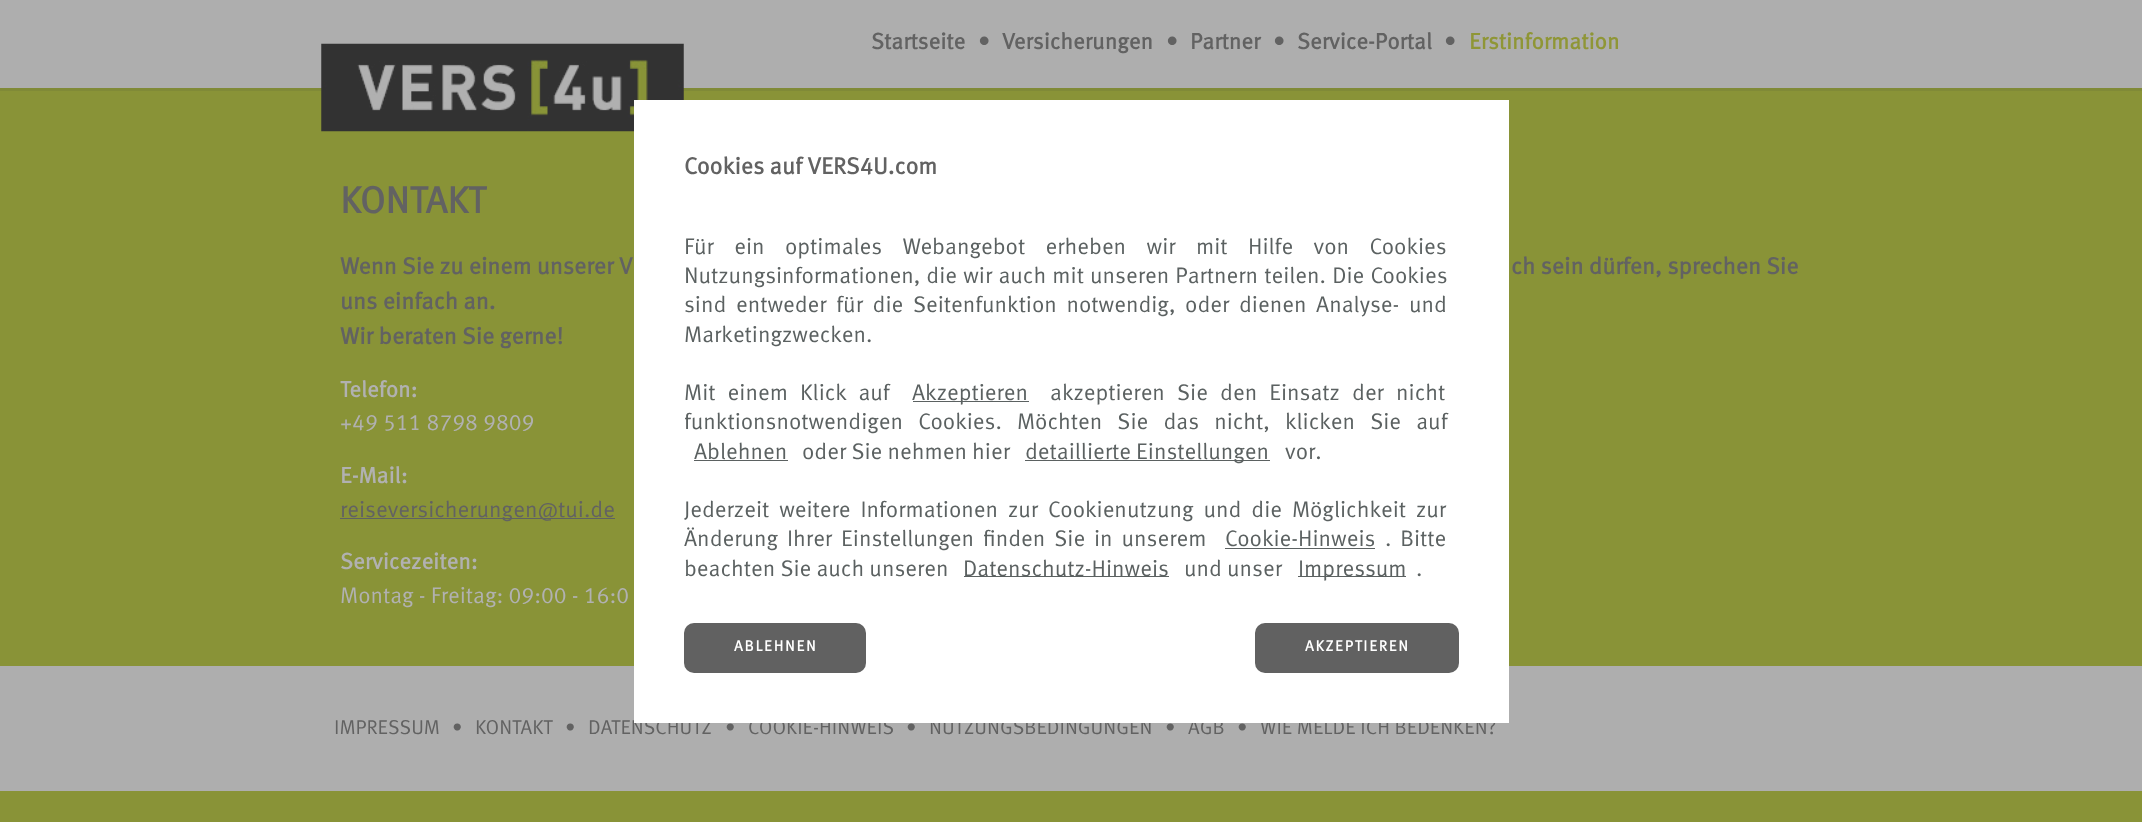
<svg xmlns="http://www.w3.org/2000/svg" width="2142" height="822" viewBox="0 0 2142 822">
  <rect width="100%" height="100%" fill="#899337"/>
  <path d="M0 88V91H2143V4H2142V88Z" fill="#808a37"/>
  <path d="M0 0h2142v88H0z" fill="#aeaeae"/>
  <image x="321" y="43" width="363" height="89" href="img/1.png"/>
  <path d="M340 518h275v1H340z" fill="#5f6262"/>
  <path d="M0 666h2142v125H0z" fill="#aeaeae"/>
  <g font-family="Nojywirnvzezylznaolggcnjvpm" font-size="22.5" font-weight="bold" fill="#626262">
    <text x="871" y="49">Startseite</text>
    <text x="978" y="49">•</text>
    <text x="1002" y="49">Versicherungen</text>
    <text x="1166" y="49">•</text>
    <text x="1190" y="49">Partner</text>
    <text x="1273" y="49">•</text>
    <text x="1297" y="49">Service-Portal</text>
    <text x="1444" y="49">•</text>
  </g>
  <text x="1469" y="49" font-family="Nojywirnvzezylznaolggcnjvpm" font-size="22.5" font-weight="bold" fill="#8f9636">Erstinformation</text>
  <text x="340" y="213" font-family="Nojywirnvzezylznaolggcnjvpm" font-size="37.5" font-weight="bold" fill="#626262">KONTAKT</text>
  <g font-family="Nojywirnvzezylznaolggcnjvpm" font-size="23.4" font-weight="bold" fill="#626262">
    <text x="340" y="274">Wenn Sie zu einem unserer V</text>
    <text x="1511" y="274">ch sein dürfen, sprechen Sie</text>
    <text x="340" y="309">uns einfach an.</text>
    <text x="340" y="344">Wir beraten Sie gerne!</text>
  </g>
  <text x="340" y="397" font-family="Nojywirnvzezylznaolggcnjvpm" font-size="22.5" font-weight="bold" fill="#b1b1b1">Telefon:</text>
  <text x="340" y="430" font-family="Nojywirnvzezylznaolggcnjvpm" font-size="22.5" fill="#b1b1b1">+49 511 8798 9809</text>
  <text x="340" y="483" font-family="Nojywirnvzezylznaolggcnjvpm" font-size="22.5" font-weight="bold" fill="#b1b1b1">E-Mail:</text>
  <text x="340" y="517" font-family="Nojywirnvzezylznaolggcnjvpm" font-size="22.5" fill="#626262">reiseversicherungen@tui.de</text>
  <text x="340" y="569" font-family="Nojywirnvzezylznaolggcnjvpm" font-size="22.5" font-weight="bold" fill="#b1b1b1">Servicezeiten:</text>
  <text x="340" y="603" font-family="Nojywirnvzezylznaolggcnjvpm" font-size="22.5" fill="#b1b1b1">Montag - Freitag: 09:00 - 16:0</text>
  <g font-family="Nojywirnvzezylznaolggcnjvpm" font-size="20" fill="#626262">
    <text x="334" y="734">IMPRESSUM</text>
    <text x="452" y="734">•</text>
    <text x="475" y="734">KONTAKT</text>
    <text x="565" y="734">•</text>
    <text x="588" y="734">DATENSCHUTZ</text>
    <text x="725" y="734">•</text>
    <text x="748" y="734">COOKIE-HINWEIS</text>
    <text x="906" y="734">•</text>
    <text x="929" y="734">NUTZUNGSBEDINGUNGEN</text>
    <text x="1165" y="734">•</text>
    <text x="1188" y="734">AGB</text>
    <text x="1237" y="734">•</text>
    <text x="1260" y="734">WIE MELDE ICH BEDENKEN?</text>
  </g>
  <path d="M634 100h875v623H634z" fill="#fff"/>
  <rect x="1255" y="623" width="204" height="50" rx="10" fill="#616161"/>
  <text x="1305" y="651" font-family="Nojywirnvzezylznaolggcnjvpm" font-size="15" font-weight="bold" letter-spacing="1.75" fill="#fff">AKZEPTIEREN</text>
  <rect x="684" y="623" width="182" height="50" rx="10" fill="#616161"/>
  <text x="734" y="651" font-family="Nojywirnvzezylznaolggcnjvpm" font-size="15" font-weight="bold" letter-spacing="1.75" fill="#fff">ABLEHNEN</text>
  <text x="1416" y="576" font-family="Nojywirnvzezylznaolggcnjvpm" font-size="22.5" fill="#5b6161">.</text>
  <path d="M1298 576h108v1H1298z" fill="#5b6161"/>
  <g font-family="Nojywirnvzezylznaolggcnjvpm" font-size="22.5" fill="#5b6161">
    <text x="1298" y="576">Impressum</text>
    <text x="1184" y="576">und unser</text>
  </g>
  <path d="M964 576h205v1H964z" fill="#5b6161"/>
  <g font-family="Nojywirnvzezylznaolggcnjvpm" font-size="22.5" fill="#5b6161">
    <text x="963" y="576">Datenschutz-Hinweis</text>
    <text x="684" y="576">beachten Sie auch unseren</text>
    <text x="1385" y="546" word-spacing="3.75">. Bitte</text>
    <text x="1225" y="546">Cookie-Hinweis</text>
  </g>
  <path d="M1225 548h150v1H1225z" fill="#5b6161"/>
  <g font-family="Nojywirnvzezylznaolggcnjvpm" font-size="22.5" fill="#5b6161">
    <text x="684" y="546" word-spacing="3.75">Änderung Ihrer Einstellungen finden Sie in unserem</text>
    <text x="684" y="517" word-spacing="4.75">Jederzeit weitere Informationen zur Cookienutzung und die Möglichkeit zur</text>
    <text x="1285" y="459">vor.</text>
  </g>
  <path d="M1025 460h245v1H1025z" fill="#5b6161"/>
  <g font-family="Nojywirnvzezylznaolggcnjvpm" font-size="22.5" fill="#5b6161">
    <text x="1025" y="459">detaillierte Einstellungen</text>
    <text x="802" y="459">oder Sie nehmen hier</text>
    <text x="694" y="459">Ablehnen</text>
  </g>
  <path d="M694 460h94v1H694z" fill="#5b6161"/>
  <g font-family="Nojywirnvzezylznaolggcnjvpm" font-size="22.5" fill="#5b6161">
    <text x="684" y="429" word-spacing="10">funktionsnotwendigen Cookies. Möchten Sie das nicht, klicken Sie auf</text>
    <text x="1050" y="400" word-spacing="7">akzeptieren Sie den Einsatz der nicht</text>
  </g>
  <path d="M913 401h116v1H913z" fill="#5b6161"/>
  <g font-family="Nojywirnvzezylznaolggcnjvpm" font-size="22.5" fill="#5b6161">
    <text x="912" y="400">Akzeptieren</text>
    <text x="684" y="400" word-spacing="7">Mit einem Klick auf</text>
    <text x="684" y="342">Marketingzwecken.</text>
    <text x="684" y="312" word-spacing="4.5">sind entweder für die Seitenfunktion notwendig, oder dienen Analyse- und</text>
    <text x="684" y="283" word-spacing="1">Nutzungsinformationen, die wir auch mit unseren Partnern teilen. Die Cookies</text>
    <text x="684" y="254" word-spacing="15.25">Für ein optimales Webangebot erheben wir mit Hilfe von Cookies</text>
  </g>
  <text x="684" y="174" font-family="Nojywirnvzezylznaolggcnjvpm" font-size="23.4" font-weight="bold" fill="#626262">Cookies auf VERS4U.com</text>
</svg>
